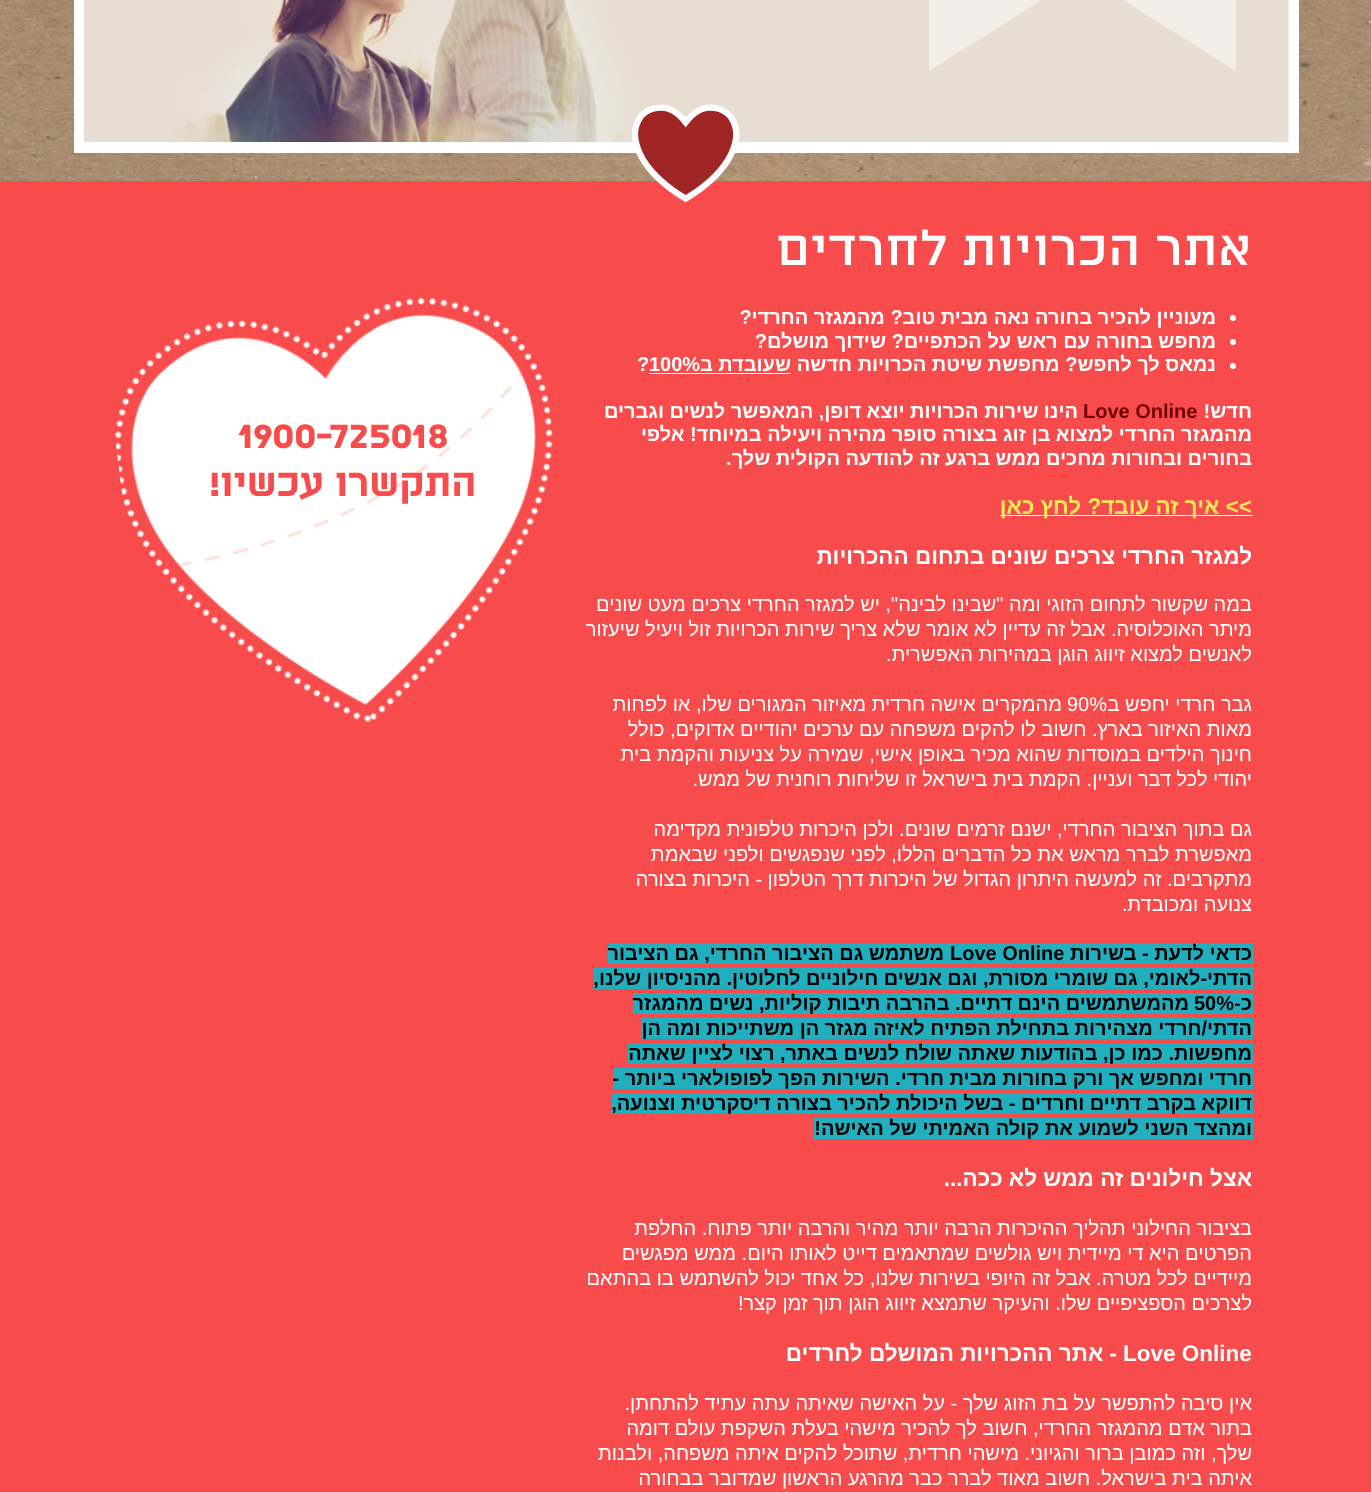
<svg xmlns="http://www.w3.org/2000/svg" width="1371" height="1492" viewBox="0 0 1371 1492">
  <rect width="100%" height="100%" fill="#fff"/>
  <image x="0" y="0" width="1371" height="181" href="img/1.png"/>
  <path d="M74 0h1225v153H74z" fill="#fff"/>
  <image x="84" y="0" width="1205" height="142" href="img/2.png"/>
  <path d="M1236-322V71L611-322Z" fill="#f4eee8"/>
  <path d="M929 71V-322H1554Z" fill="#f4eee8"/>
  <path d="M0 181h1371v1311H0z" fill="#f84c4c"/>
  <image x="632" y="104" width="108" height="99" href="img/3.png"/>
  <circle cx="1233" cy="318" r="3" fill="#fff"/>
  <circle cx="1233" cy="342" r="3" fill="#fff"/>
  <circle cx="1233" cy="366" r="3" fill="#fff"/>
  <path d="M649 373h142v1H649z" fill="#fff"/>
  <path d="M1000 515h253v1H1000z" fill="#fff"/>
  <path d="M608 943h645v21H608z" fill="#21afbf"/>
  <path d="M594 968h659v21H594z" fill="#21afbf"/>
  <path d="M633 993h620v21H633z" fill="#21afbf"/>
  <path d="M641 1018h612v21H641z" fill="#21afbf"/>
  <path d="M628 1043h625v21H628z" fill="#21afbf"/>
  <path d="M613 1068h640v21H613z" fill="#21afbf"/>
  <path d="M611 1093h642v21H611z" fill="#21afbf"/>
  <path d="M814 1118h439v21H814z" fill="#21afbf"/>
  <image x="114" y="297" width="440" height="427" href="img/4.png"/>
  <text x="1252" y="265" font-family="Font" font-size="56.25" font-weight="500" direction="rtl" fill="#fff">אתר הכרויות לחרדים</text>
  <g font-family="Liberation Sans" font-size="20" font-weight="bold" direction="rtl" fill="#fff">
    <text x="1216" y="324">מעוניין להכיר בחורה נאה מבית טוב? מהמגזר החרדי?</text>
    <text x="1216" y="348">מחפש בחורה עם ראש על הכתפיים? שידוך מושלם?</text>
    <text x="1216" y="371">נמאס לך לחפש? מחפשת שיטת הכרויות חדשה</text>
    <text x="791" y="371">שעובדת ב</text>
  </g>
  <g font-family="Liberation Sans" font-size="20" font-weight="bold" fill="#fff">
    <text x="649" y="371">100%</text>
    <text x="637" y="371">?</text>
  </g>
  <text x="1252" y="418" font-family="Liberation Sans" font-size="20" font-weight="bold" direction="rtl" fill="#fff">חדש!</text>
  <text x="1083" y="418" font-family="Liberation Sans" font-size="20" font-weight="bold" fill="#6f0000">Love Online</text>
  <g font-family="Liberation Sans" font-size="20" font-weight="bold" direction="rtl" fill="#fff">
    <text x="1078" y="418">הינו שירות הכרויות יוצא דופן, המאפשר לנשים וגברים</text>
    <text x="1252" y="441">מהמגזר החרדי למצוא בן זוג בצורה סופר מהירה ויעילה במיוחד! אלפי</text>
    <text x="1252" y="465">בחורים ובחורות מחכים ממש ברגע זה להודעה הקולית שלך.</text>
  </g>
  <text x="1252" y="514" font-family="Liberation Sans" font-size="22.5" font-weight="bold" direction="rtl" fill="#fbe858">&gt;&gt; איך זה עובד? לחץ כאן</text>
  <text x="1252" y="564" font-family="Liberation Sans" font-size="22.5" font-weight="bold" direction="rtl" fill="#fff">למגזר החרדי צרכים שונים בתחום ההכרויות</text>
  <g font-family="Liberation Sans" font-size="20" direction="rtl" fill="#fff">
    <text x="1252" y="611">במה שקשור לתחום הזוגי ומה "שבינו לבינה", יש למגזר החרדי צרכים מעט שונים</text>
    <text x="1252" y="636">מיתר האוכלוסיה. אבל זה עדיין לא אומר שלא צריך שירות הכרויות זול ויעיל שיעזור</text>
    <text x="1252" y="661">לאנשים למצוא זיווג הוגן במהירות האפשרית.</text>
    <text x="1252" y="711">גבר חרדי יחפש ב</text>
  </g>
  <text x="1067" y="711" font-family="Liberation Sans" font-size="20" fill="#fff">90%</text>
  <g font-family="Liberation Sans" font-size="20" direction="rtl" fill="#fff">
    <text x="1062" y="711">מהמקרים אישה חרדית מאיזור המגורים שלו, או לפחות</text>
    <text x="1252" y="736">מאות האיזור בארץ. חשוב לו להקים משפחה עם ערכים יהודיים אדוקים, כולל</text>
    <text x="1252" y="761">חינוך הילדים במוסדות שהוא מכיר באופן אישי, שמירה על צניעות והקמת בית</text>
    <text x="1252" y="786">יהודי לכל דבר ועניין. הקמת בית בישראל זו שליחות רוחנית של ממש.</text>
    <text x="1252" y="836">גם בתוך הציבור החרדי, ישנם זרמים שונים. ולכן היכרות טלפונית מקדימה</text>
    <text x="1252" y="861">מאפשרת לברר מראש את כל הדברים הללו, לפני שנפגשים ולפני שבאמת</text>
    <text x="1252" y="886">מתקרבים. זה למעשה היתרון הגדול של היכרות דרך הטלפון - היכרות בצורה</text>
    <text x="1252" y="911">צנועה ומכובדת.</text>
  </g>
  <text x="1252" y="960" font-family="Liberation Sans" font-size="20" font-weight="bold" direction="rtl" fill="#000">כדאי לדעת - בשירות</text>
  <text x="950" y="960" font-family="Liberation Sans" font-size="20" font-weight="bold" fill="#000">Love Online</text>
  <g font-family="Liberation Sans" font-size="20" font-weight="bold" direction="rtl" fill="#000">
    <text x="944" y="960">משתמש גם הציבור החרדי, גם הציבור</text>
    <text x="1252" y="985">הדתי-לאומי, גם שומרי מסורת, וגם אנשים חילוניים לחלוטין. מהניסיון שלנו,</text>
    <text x="1252" y="1010">כ-</text>
  </g>
  <text x="1194" y="1010" font-family="Liberation Sans" font-size="20" font-weight="bold" fill="#000">50%</text>
  <g font-family="Liberation Sans" font-size="20" font-weight="bold" direction="rtl" fill="#000">
    <text x="1189" y="1010">מהמשתמשים הינם דתיים. בהרבה תיבות קוליות, נשים מהמגזר</text>
    <text x="1252" y="1035">הדתי/חרדי מצהירות בתחילת הפתיח לאיזה מגזר הן משתייכות ומה הן</text>
    <text x="1252" y="1060">מחפשות. כמו כן, בהודעות שאתה שולח לנשים באתר, רצוי לציין שאתה</text>
    <text x="1252" y="1085">חרדי ומחפש אך ורק בחורות מבית חרדי. השירות הפך לפופולארי ביותר -</text>
    <text x="1252" y="1110">דווקא בקרב דתיים וחרדים - בשל היכולת להכיר בצורה דיסקרטית וצנועה,</text>
    <text x="1252" y="1135">ומהצד השני לשמוע את קולה האמיתי של האישה!</text>
  </g>
  <text x="1252" y="1186" font-family="Liberation Sans" font-size="22.5" font-weight="bold" direction="rtl" fill="#fff">אצל חילונים זה ממש לא ככה...</text>
  <g font-family="Liberation Sans" font-size="20" direction="rtl" fill="#fff">
    <text x="1252" y="1235">בציבור החילוני תהליך ההיכרות הרבה יותר מהיר והרבה יותר פתוח. החלפת</text>
    <text x="1252" y="1260">הפרטים היא די מיידית ויש גולשים שמתאמים דייט לאותו היום. ממש מפגשים</text>
    <text x="1252" y="1285">מיידיים לכל מטרה. אבל זה היופי בשירות שלנו, כל אחד יכול להשתמש בו בהתאם</text>
    <text x="1252" y="1310">לצרכים הספציפיים שלו. והעיקר שתמצא זיווג הוגן תוך זמן קצר!</text>
  </g>
  <text x="1123" y="1361" font-family="Liberation Sans" font-size="22.5" font-weight="bold" fill="#fff">Love Online</text>
  <text x="1117" y="1361" font-family="Liberation Sans" font-size="22.5" font-weight="bold" direction="rtl" fill="#fff">- אתר ההכרויות המושלם לחרדים</text>
  <g font-family="Liberation Sans" font-size="20" direction="rtl" fill="#fff">
    <text x="1252" y="1410">אין סיבה להתפשר על בת הזוג שלך - על האישה שאיתה עתה עתיד להתחתן.</text>
    <text x="1252" y="1435">בתור אדם מהמגזר החרדי, חשוב לך להכיר מישהי בעלת השקפת עולם דומה</text>
    <text x="1252" y="1460">שלך, וזה כמובן ברור והגיוני. מישהי חרדית, שתוכל להקים איתה משפחה, ולבנות</text>
    <text x="1252" y="1485">איתה בית בישראל. חשוב מאוד לברר כבר מהרגע הראשון שמדובר בבחורה</text>
  </g>
  <text x="238" y="448" font-family="Font" font-size="42.5" font-weight="bold" fill="#f84c4c">1900-725018</text>
  <text x="476" y="496" font-family="Font" font-size="42.5" font-weight="bold" direction="rtl" fill="#f84c4c">התקשרו עכשיו!</text>
</svg>
